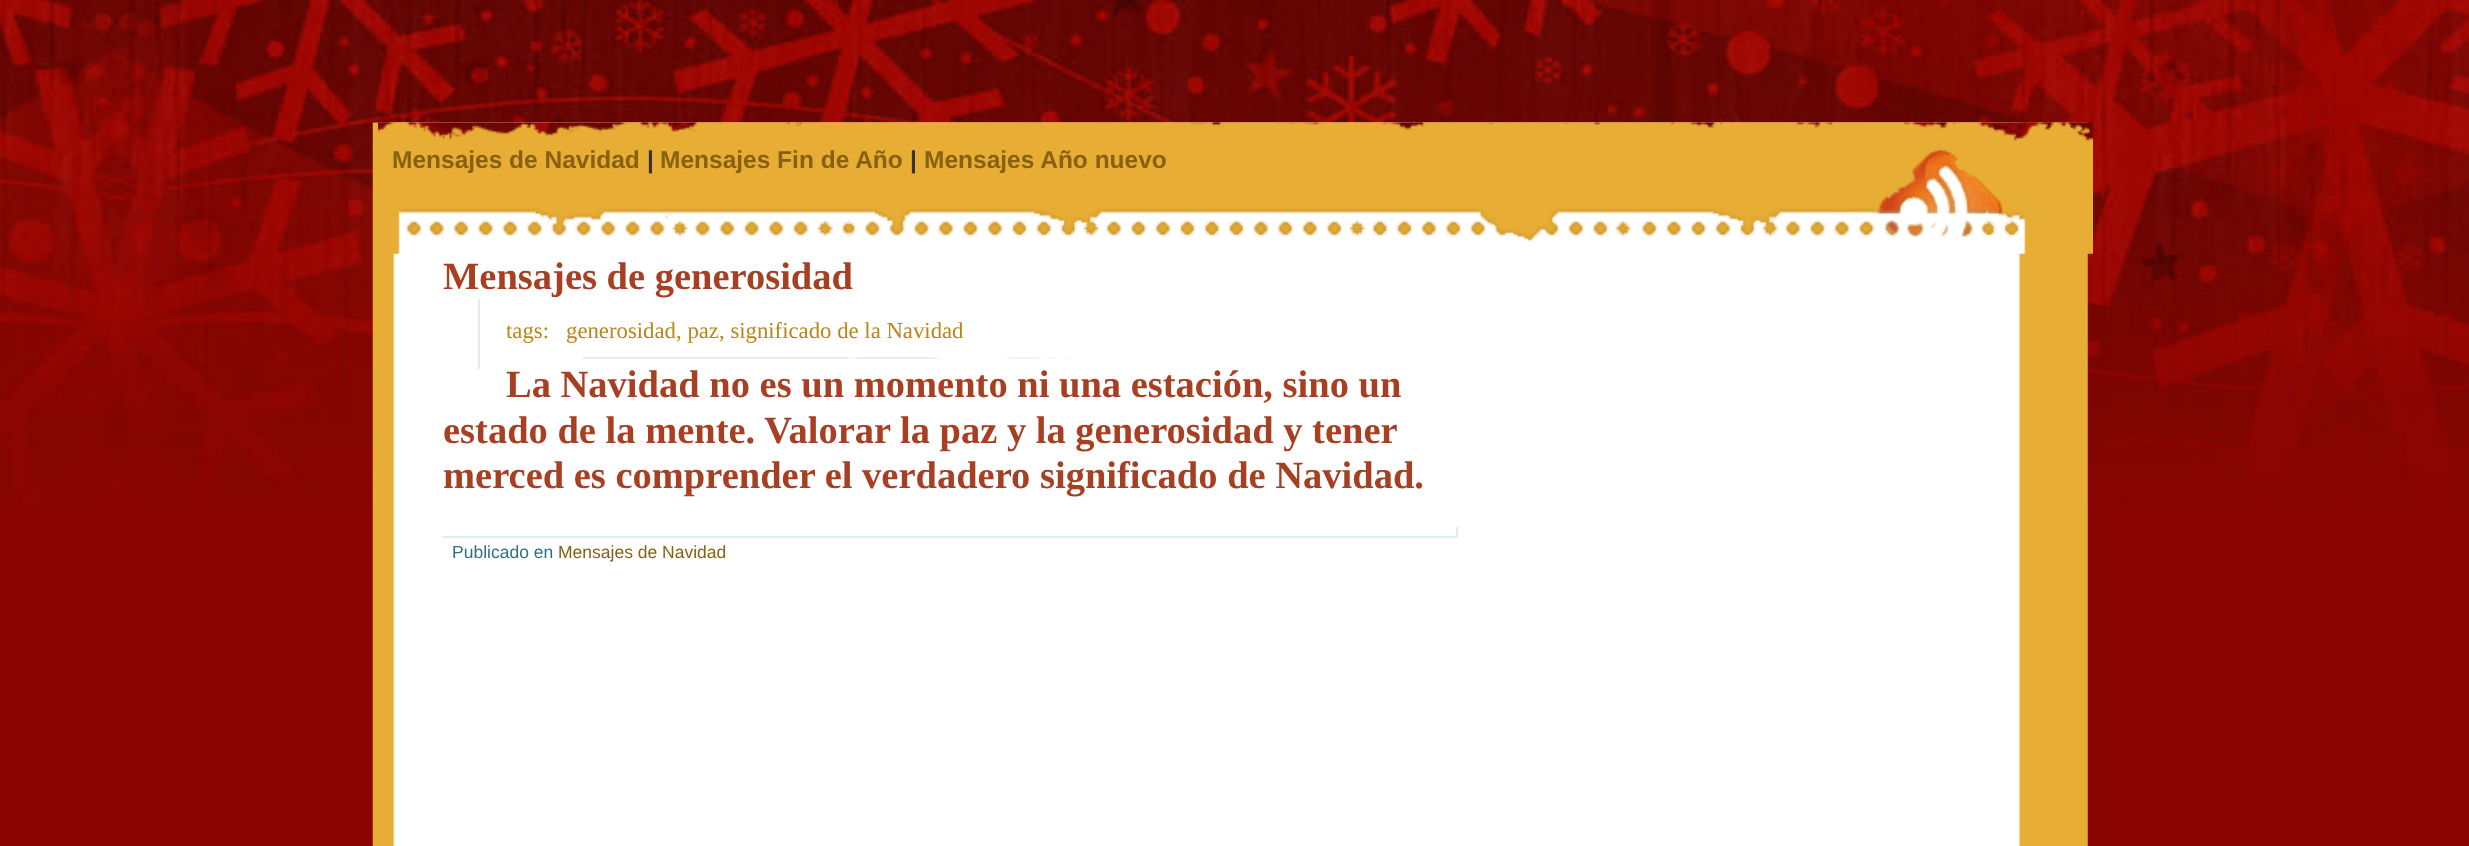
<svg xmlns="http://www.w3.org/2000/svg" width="2469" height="846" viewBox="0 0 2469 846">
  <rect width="100%" height="100%" fill="#8a0501"/>
  <image x="0" y="0" width="2469" height="504" href="img/1.png"/>
  <image x="372" y="122" width="1716" height="724" href="img/2.png"/>
  <image x="378" y="122" width="1715" height="132" href="img/3.png"/>
  <image x="582" y="357" width="490" height="2" href="img/4.png"/>
  <path d="M478 299h2v70H478z" fill="#e0edf1"/>
  <path d="M1456 527h2v10H1456z" fill="#e0edf1"/>
  <path d="M443 536h1015v2H443z" fill="#e0edf1"/>
  <text x="392" y="168" font-family="Liberation Sans" font-size="24.5" font-weight="bold" fill="#876110">Mensajes de Navidad</text>
  <text x="647" y="168" font-family="Liberation Sans" font-size="24.5" font-weight="bold" fill="#333">|</text>
  <text x="660" y="168" font-family="Liberation Sans" font-size="24.5" font-weight="bold" fill="#876110">Mensajes Fin de Año</text>
  <text x="910" y="168" font-family="Liberation Sans" font-size="24.5" font-weight="bold" fill="#333">|</text>
  <text x="924" y="168" font-family="Liberation Sans" font-size="24.5" font-weight="bold" fill="#876110">Mensajes Año nuevo</text>
  <text x="443" y="289" font-family="Liberation Serif" font-size="38.5" font-weight="bold" fill="#a74022">Mensajes de generosidad</text>
  <g font-family="Liberation Serif" font-size="22.75" fill="#bc8616">
    <text x="506" y="338">tags:</text>
    <text x="566" y="338">generosidad</text>
    <text x="676" y="338">, paz</text>
    <text x="719" y="338">, significado de la Navidad</text>
  </g>
  <g font-family="Liberation Serif" font-size="38.5" font-weight="bold" fill="#a74022">
    <text x="506" y="397">La Navidad no es un momento ni una estación, sino un</text>
    <text x="443" y="443">estado de la mente. Valorar la paz y la generosidad y tener</text>
    <text x="443" y="488">merced es comprender el verdadero significado de Navidad.</text>
  </g>
  <text x="452" y="558" font-family="Liberation Sans" font-size="17.5" fill="#316e7e">Publicado en</text>
  <text x="558" y="558" font-family="Liberation Sans" font-size="17.5" fill="#876110">Mensajes de Navidad</text>
</svg>
